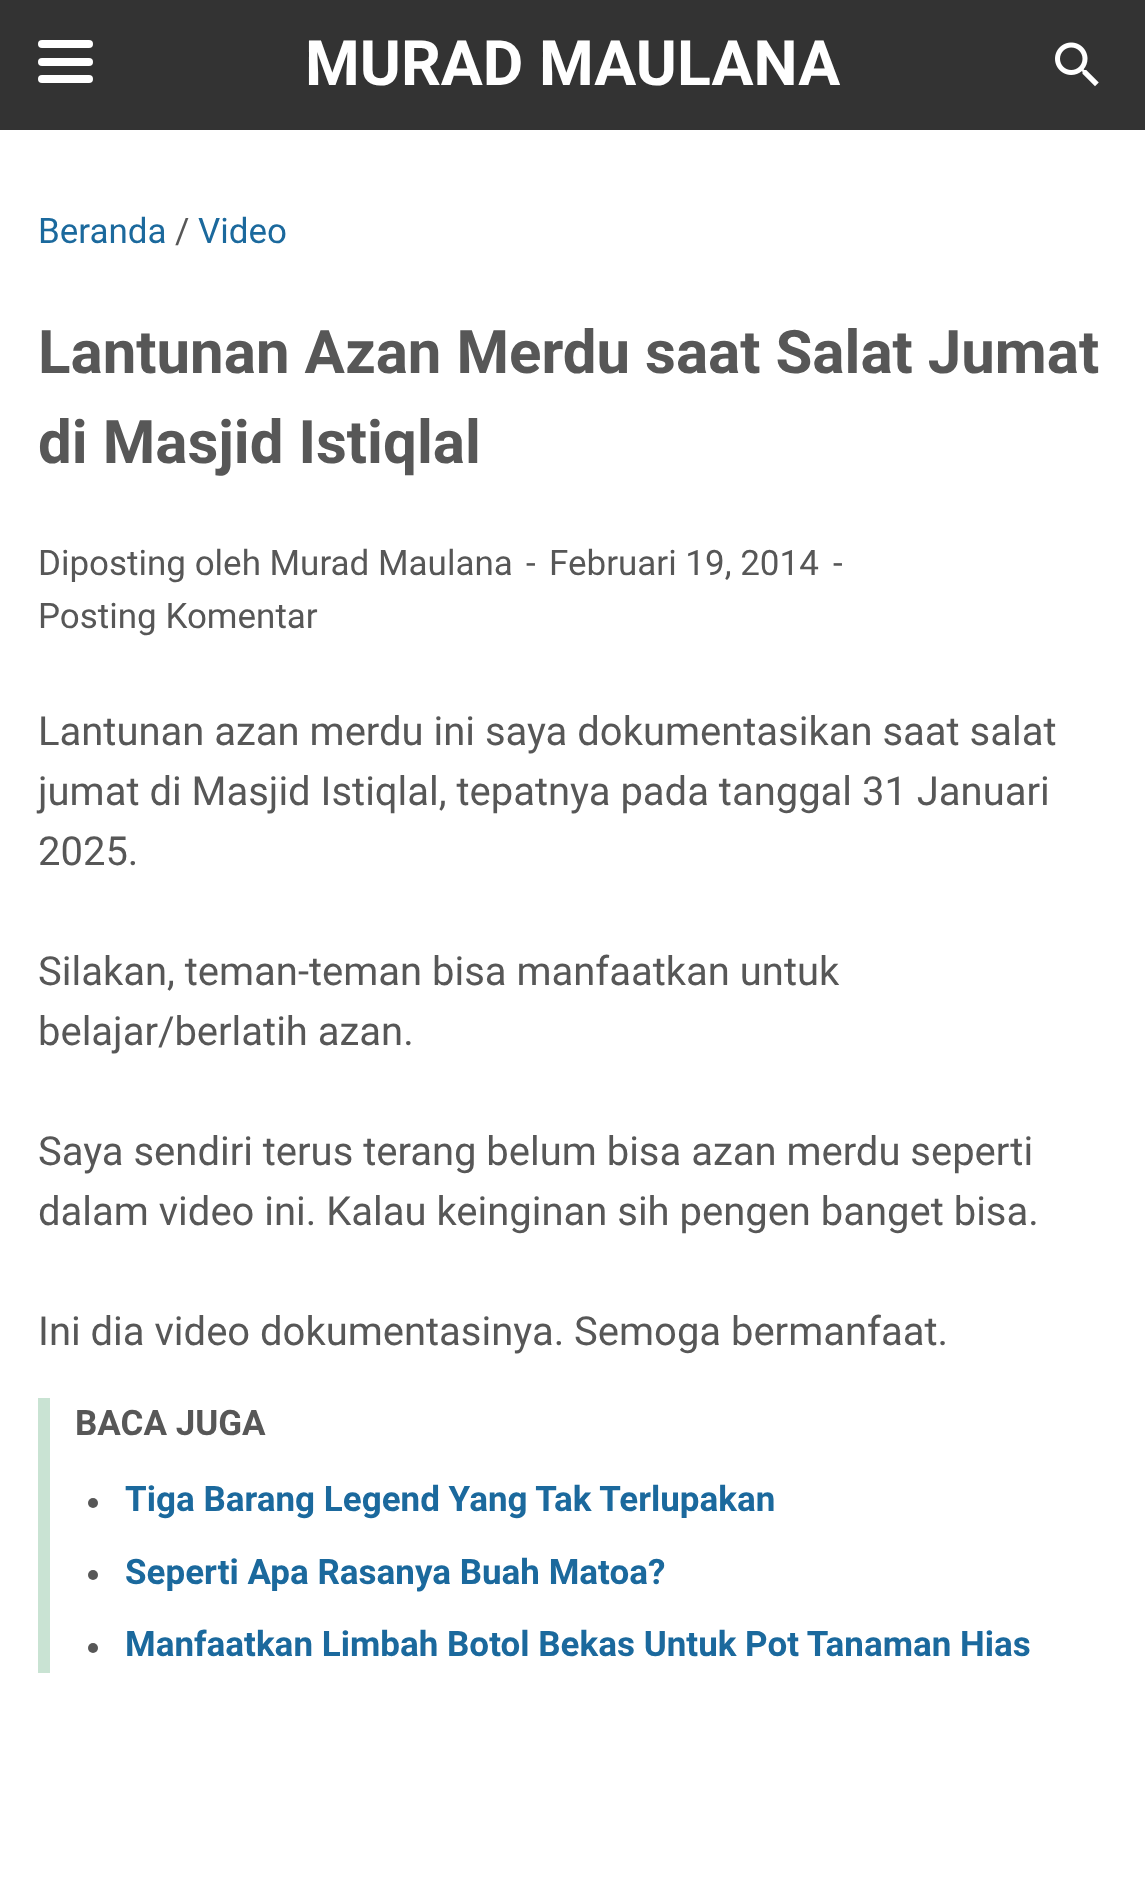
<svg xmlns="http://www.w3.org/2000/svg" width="1145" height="1881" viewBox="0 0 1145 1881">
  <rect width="100%" height="100%" fill="#fff"/>
  <path d="M0 0h1145v130H0z" fill="#333"/>
  <rect x="38" y="40" width="55" height="8" rx="4" fill="#fff"/>
  <rect x="38" y="58" width="55" height="8" rx="4" fill="#fff"/>
  <rect x="38" y="75" width="55" height="8" rx="4" fill="#fff"/>
  <image x="1055" y="42" width="44" height="45" href="img/1.png"/>
  <path d="M38 1398h12v275H38z" fill="#c9e3d3"/>
  <circle cx="93" cy="1503" r="5" fill="#575757"/>
  <circle cx="93" cy="1575" r="5" fill="#575757"/>
  <circle cx="93" cy="1648" r="5" fill="#575757"/>
  <text x="305" y="85" font-family="Roboto" font-size="62.5" font-weight="bold" fill="#fff">MURAD MAULANA</text>
  <text x="38" y="243" font-family="Roboto" font-size="35" fill="#1b699d">Beranda</text>
  <text x="175" y="243" font-family="Roboto" font-size="35" fill="#575757">/</text>
  <text x="198" y="243" font-family="Roboto" font-size="35" fill="#1b699d">Video</text>
  <g font-family="Roboto" font-size="60" font-weight="bold" fill="#575757">
    <text x="38" y="373">Lantunan Azan Merdu saat Salat Jumat</text>
    <text x="38" y="463">di Masjid Istiqlal</text>
  </g>
  <g font-family="Roboto" font-size="35" fill="#575757">
    <text x="38" y="575">Diposting oleh Murad Maulana</text>
    <text x="526" y="575">-</text>
    <text x="549" y="575">Februari 19, 2014</text>
    <text x="833" y="575">-</text>
    <text x="38" y="628">Posting Komentar</text>
  </g>
  <g font-family="Roboto" font-size="40" fill="#575757">
    <text x="38" y="745">Lantunan azan merdu ini saya dokumentasikan saat salat</text>
    <text x="38" y="805">jumat di Masjid Istiqlal, tepatnya pada tanggal 31 Januari</text>
    <text x="38" y="865">2025.</text>
    <text x="38" y="985">Silakan, teman-teman bisa manfaatkan untuk</text>
    <text x="38" y="1045">belajar/berlatih azan.</text>
    <text x="38" y="1165">Saya sendiri terus terang belum bisa azan merdu seperti</text>
    <text x="38" y="1225">dalam video ini. Kalau keinginan sih pengen banget bisa.</text>
    <text x="38" y="1345">Ini dia video dokumentasinya. Semoga bermanfaat.</text>
  </g>
  <text x="75" y="1435" font-family="Roboto" font-size="35" font-weight="bold" fill="#575757">BACA JUGA</text>
  <g font-family="Roboto" font-size="35" font-weight="bold" fill="#1b699d">
    <text x="125" y="1511">Tiga Barang Legend Yang Tak Terlupakan</text>
    <text x="125" y="1584">Seperti Apa Rasanya Buah Matoa?</text>
    <text x="125" y="1656">Manfaatkan Limbah Botol Bekas Untuk Pot Tanaman Hias</text>
  </g>
</svg>
